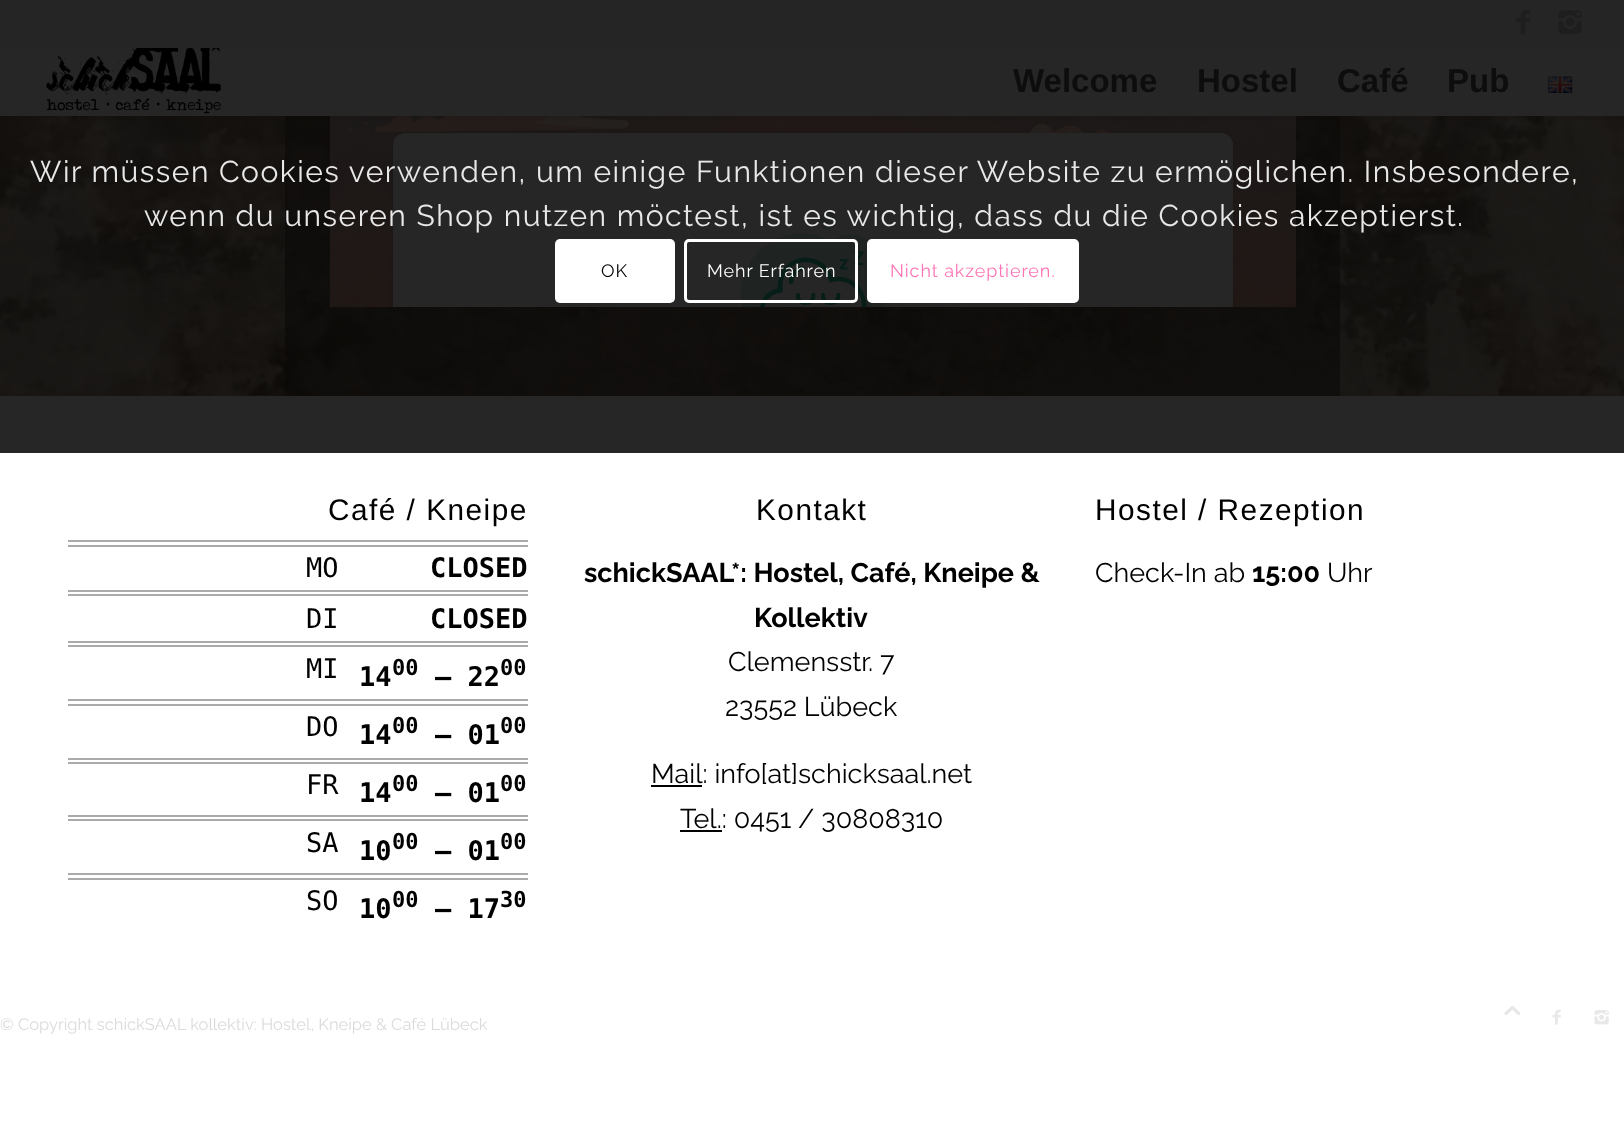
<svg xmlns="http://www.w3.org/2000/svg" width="1624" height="1122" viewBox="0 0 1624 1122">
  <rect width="100%" height="100%" fill="#fff"/>
  <path d="M0 396h1624v57H0z" fill="#262626"/>
  <path d="M0 395h1624v1H0z" fill="#16140f"/>
  <image x="0" y="116" width="1624" height="280" href="img/5.png"/>
  <path d="M285 116h1055v280H285z" fill="#0b09089c"/>
  <image x="330" y="116" width="966" height="191" href="img/6.png"/>
  <path d="M-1 -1h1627v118H-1z" fill="#0000001a" filter="blur(1.5px)"/>
  <path d="M0 0h1624v48H0z" fill="#252525"/>
  <image x="1516" y="9" width="14" height="26" href="img/1.png"/>
  <image x="1558" y="10" width="24" height="24" href="img/2.png"/>
  <path d="M0 48h1624v68H0z" fill="#262626"/>
  <image x="46" y="48" width="176" height="66" href="img/3.png"/>
  <image x="1548" y="76" width="25" height="17" href="img/4.png"/>
  <path d="M68 540h460v2H68z" fill="#aaa"/>
  <path d="M68 545h460v2H68z" fill="#aaa"/>
  <path d="M68 590h460v2H68z" fill="#aaa"/>
  <path d="M68 594h460v2H68z" fill="#aaa"/>
  <path d="M68 641h460v2H68z" fill="#aaa"/>
  <path d="M68 645h460v2H68z" fill="#aaa"/>
  <path d="M68 699h460v2H68z" fill="#aaa"/>
  <path d="M68 704h460v2H68z" fill="#aaa"/>
  <path d="M68 758h460v2H68z" fill="#aaa"/>
  <path d="M68 762h460v2H68z" fill="#aaa"/>
  <path d="M68 815h460v2H68z" fill="#aaa"/>
  <path d="M68 819h460v2H68z" fill="#aaa"/>
  <path d="M68 873h460v2H68z" fill="#aaa"/>
  <path d="M68 878h460v2H68z" fill="#aaa"/>
  <path d="M651 785h51v2H651z" fill="#000"/>
  <path d="M680 830h42v2H680z" fill="#000"/>
  <image x="1552" y="1009" width="9" height="16" href="img/7.png"/>
  <image x="1594" y="1010" width="15" height="15" href="img/8.png"/>
  <rect x="555" y="239" width="120" height="64" rx="5" fill="#fff"/>
  <rect x="685.5" y="240.5" width="171" height="61" rx="3.5" fill="none" stroke="#fff" stroke-width="3"/>
  <rect x="868.5" y="240.5" width="209" height="61" rx="3.5" fill="#fff" stroke="#fff" stroke-width="3"/>
  <image x="1504" y="1006" width="16" height="9" href="img/9.png"/>
  <g font-family="Liberation Sans" font-size="33" font-weight="bold" fill="#0d0d0d">
    <text x="1013" y="92">Welcome</text>
    <text x="1197" y="92">Hostel</text>
    <text x="1337" y="92">Café</text>
    <text x="1447" y="92">Pub</text>
  </g>
  <text x="328" y="520" font-family="Liberation Sans" font-size="29.75" letter-spacing="1.5" fill="#000">Café / Kneipe</text>
  <text x="306" y="577" font-family="DejaVu Sans Mono" font-size="27" fill="#000">MO</text>
  <text x="430" y="577" font-family="DejaVu Sans Mono" font-size="27" font-weight="bold" fill="#000">CLOSED</text>
  <text x="306" y="628" font-family="DejaVu Sans Mono" font-size="27" fill="#000">DI</text>
  <text x="430" y="628" font-family="DejaVu Sans Mono" font-size="27" font-weight="bold" fill="#000">CLOSED</text>
  <text x="306" y="678" font-family="DejaVu Sans Mono" font-size="27" fill="#000">MI</text>
  <text x="359" y="686" font-family="DejaVu Sans Mono" font-size="27" font-weight="bold" fill="#000">14</text>
  <text x="392" y="675" font-family="DejaVu Sans Mono" font-size="22" font-weight="bold" fill="#000">00</text>
  <text x="435" y="686" font-family="DejaVu Sans Mono" font-size="27" font-weight="bold" fill="#000">– 22</text>
  <text x="500" y="675" font-family="DejaVu Sans Mono" font-size="22" font-weight="bold" fill="#000">00</text>
  <text x="306" y="736" font-family="DejaVu Sans Mono" font-size="27" fill="#000">DO</text>
  <text x="359" y="744" font-family="DejaVu Sans Mono" font-size="27" font-weight="bold" fill="#000">14</text>
  <text x="392" y="733" font-family="DejaVu Sans Mono" font-size="22" font-weight="bold" fill="#000">00</text>
  <text x="435" y="744" font-family="DejaVu Sans Mono" font-size="27" font-weight="bold" fill="#000">– 01</text>
  <text x="500" y="733" font-family="DejaVu Sans Mono" font-size="22" font-weight="bold" fill="#000">00</text>
  <text x="306" y="794" font-family="DejaVu Sans Mono" font-size="27" fill="#000">FR</text>
  <text x="359" y="802" font-family="DejaVu Sans Mono" font-size="27" font-weight="bold" fill="#000">14</text>
  <text x="392" y="791" font-family="DejaVu Sans Mono" font-size="22" font-weight="bold" fill="#000">00</text>
  <text x="435" y="802" font-family="DejaVu Sans Mono" font-size="27" font-weight="bold" fill="#000">– 01</text>
  <text x="500" y="791" font-family="DejaVu Sans Mono" font-size="22" font-weight="bold" fill="#000">00</text>
  <text x="306" y="852" font-family="DejaVu Sans Mono" font-size="27" fill="#000">SA</text>
  <text x="359" y="860" font-family="DejaVu Sans Mono" font-size="27" font-weight="bold" fill="#000">10</text>
  <text x="392" y="849" font-family="DejaVu Sans Mono" font-size="22" font-weight="bold" fill="#000">00</text>
  <text x="435" y="860" font-family="DejaVu Sans Mono" font-size="27" font-weight="bold" fill="#000">– 01</text>
  <text x="500" y="849" font-family="DejaVu Sans Mono" font-size="22" font-weight="bold" fill="#000">00</text>
  <text x="306" y="910" font-family="DejaVu Sans Mono" font-size="27" fill="#000">SO</text>
  <text x="359" y="918" font-family="DejaVu Sans Mono" font-size="27" font-weight="bold" fill="#000">10</text>
  <text x="392" y="907" font-family="DejaVu Sans Mono" font-size="22" font-weight="bold" fill="#000">00</text>
  <text x="435" y="918" font-family="DejaVu Sans Mono" font-size="27" font-weight="bold" fill="#000">– 17</text>
  <text x="500" y="907" font-family="DejaVu Sans Mono" font-size="22" font-weight="bold" fill="#000">30</text>
  <text x="756" y="520" font-family="Liberation Sans" font-size="29.75" letter-spacing="1.5" fill="#000">Kontakt</text>
  <g font-family="Raleway" font-size="27" font-weight="bold" fill="#000">
    <text x="584" y="582">schickSAAL*: Hostel, Café, Kneipe &amp;</text>
    <text x="754" y="627">Kollektiv</text>
  </g>
  <g font-family="Raleway" font-size="27" fill="#000">
    <text x="728" y="671">Clemensstr. 7</text>
    <text x="725" y="716">23552 Lübeck</text>
    <text x="651" y="783">Mail: info[at]schicksaal.net</text>
    <text x="680" y="828">Tel.: 0451 / 30808310</text>
  </g>
  <text x="1095" y="520" font-family="Liberation Sans" font-size="29.75" letter-spacing="1.5" fill="#000">Hostel / Rezeption</text>
  <text x="1095" y="582" font-family="Raleway" font-size="27" fill="#000">Check-In ab</text>
  <text x="1252" y="582" font-family="Raleway" font-size="27" font-weight="bold" fill="#000">15:00</text>
  <text x="1327" y="582" font-family="Raleway" font-size="27" fill="#000">Uhr</text>
  <text x="0" y="1030" font-family="Raleway" font-size="16.5" fill="#dbdbdb">© Copyright schickSAAL kollektiv: Hostel, Kneipe &amp; Café Lübeck</text>
  <g font-family="Raleway" font-size="30" letter-spacing="1.5" fill="#e9e8e8">
    <text x="30" y="182">Wir müssen Cookies verwenden, um einige Funktionen dieser Website zu ermöglichen. Insbesondere,</text>
    <text x="144" y="226">wenn du unseren Shop nutzen möctest, ist es wichtig, dass du die Cookies akzeptierst.</text>
  </g>
  <text x="601" y="277" font-family="Raleway" font-size="18" letter-spacing="0.9" fill="#000">OK</text>
  <text x="707" y="277" font-family="Raleway" font-size="18" letter-spacing="0.9" fill="#fff">Mehr Erfahren</text>
  <text x="890" y="277" font-family="Raleway" font-size="18" letter-spacing="0.9" fill="#ff75b5">Nicht akzeptieren.</text>
</svg>
